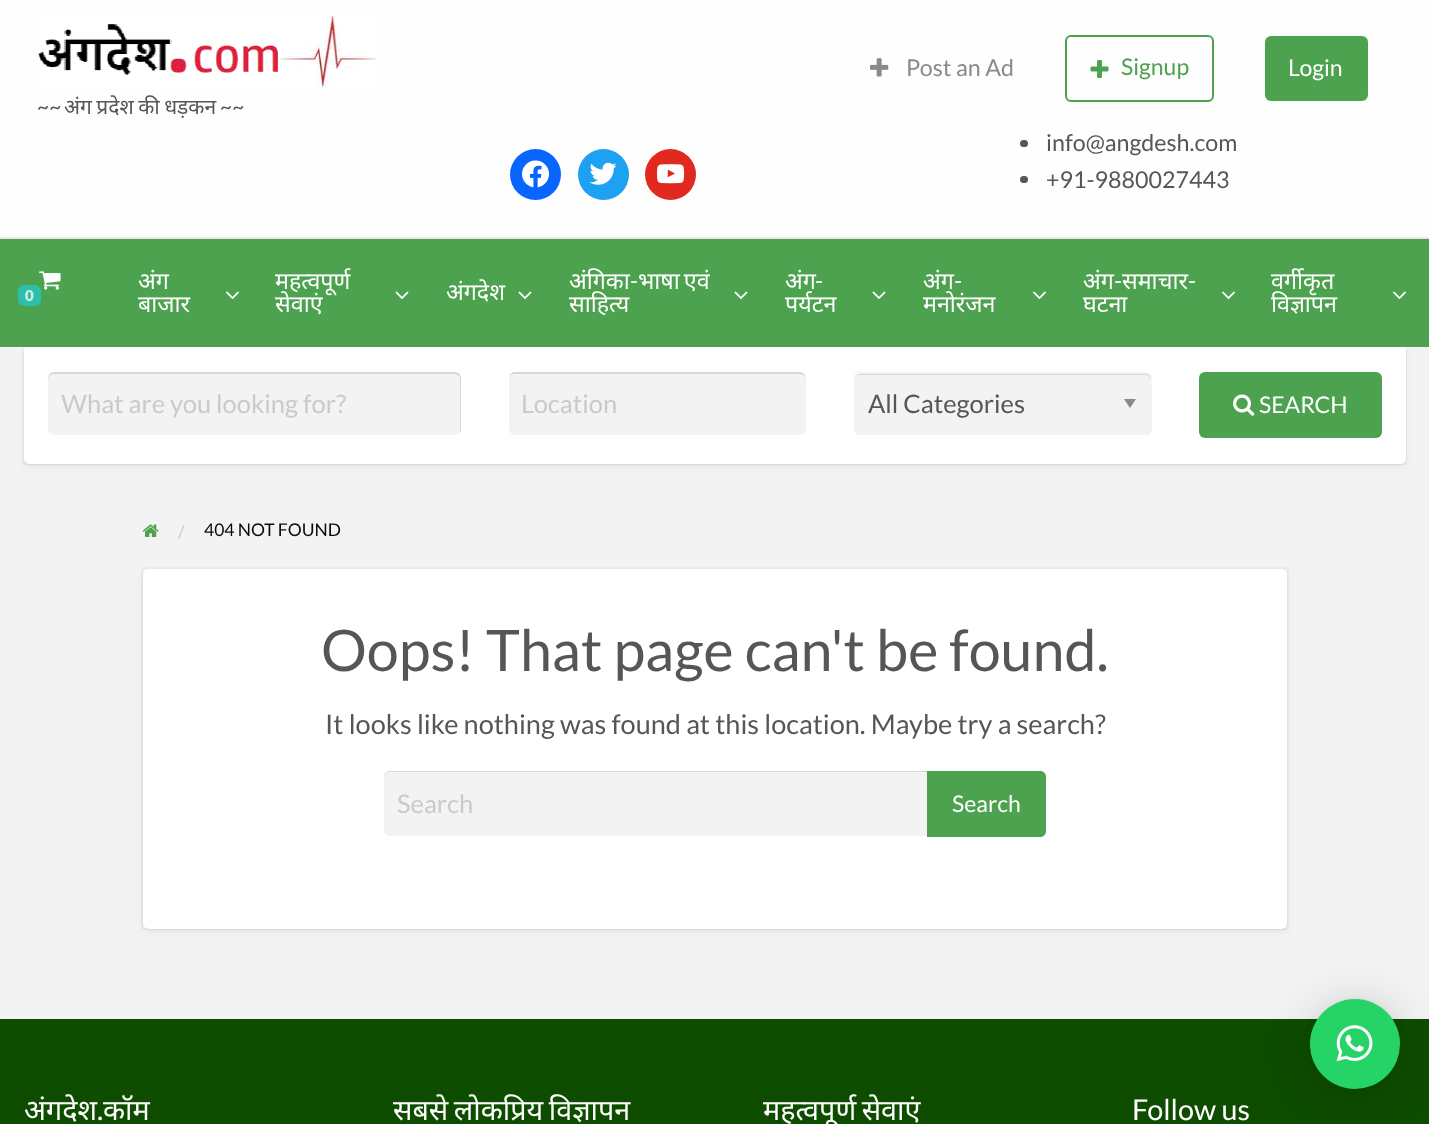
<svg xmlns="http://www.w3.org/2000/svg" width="1429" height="1124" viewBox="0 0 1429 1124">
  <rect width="100%" height="100%" fill="#f3f3f4"/>
  <path d="M0 0h1429v237H0z" fill="#fefefe"/>
  <path d="M0 237h1429v2H0z" fill="#eaeaea"/>
  <image x="870" y="58" width="19" height="19" href="img/1.png"/>
  <rect x="1066" y="36" width="147" height="65" rx="5" fill="none" stroke="#4ca24e" stroke-width="2"/>
  <image x="1090" y="60" width="19" height="18" href="img/2.png"/>
  <rect x="1265" y="36" width="103" height="65" rx="6" fill="#4ca24e"/>
  <image x="38" y="15" width="341" height="72" href="img/3.png"/>
  <circle cx="535.5" cy="174.5" r="25.5" fill="#0866ff"/>
  <image x="522" y="160" width="27" height="28" href="img/4.png"/>
  <circle cx="603.5" cy="174.5" r="25.5" fill="#1da1f2"/>
  <image x="589" y="162" width="28" height="23" href="img/5.png"/>
  <circle cx="670.5" cy="174.5" r="25.5" fill="#e02a20"/>
  <image x="657" y="164" width="28" height="20" href="img/6.png"/>
  <rect x="1020" y="140" width="8" height="7" rx="3.5" fill="#565656"/>
  <rect x="1020" y="176" width="8" height="7" rx="3.5" fill="#565656"/>
  <rect x="24" y="350" width="1382" height="117" rx="6" fill="#0000000d" filter="blur(4px)"/>
  <rect x="24" y="348" width="1382" height="117" rx="6" fill="#0000000d" filter="blur(1px)"/>
  <path d="M24 346h1382v118H24z" fill="none" stroke="#00000008" stroke-width="2"/>
  <path d="M0 239h1429v108H0z" fill="#4ca24e"/>
  <image x="39" y="271" width="22" height="19" href="img/7.png"/>
  <rect x="18" y="285" width="23" height="21" rx="6" fill="#2bbfb0"/>
  <image x="226" y="291" width="13" height="8" href="img/8.png"/>
  <image x="395" y="291" width="14" height="8" href="img/9.png"/>
  <image x="518" y="291" width="14" height="8" href="img/9.png"/>
  <image x="734" y="291" width="14" height="8" href="img/9.png"/>
  <image x="872" y="291" width="14" height="8" href="img/9.png"/>
  <image x="1033" y="291" width="13" height="8" href="img/8.png"/>
  <image x="1222" y="291" width="13" height="8" href="img/8.png"/>
  <image x="1393" y="291" width="13" height="8" href="img/8.png"/>
  <path d="M24 347H1406V458C1406 461.5 1403.5 464 1400 464H30C26.5 464 24 461.5 24 458Z" fill="#fff"/>
  <rect x="48" y="372" width="413" height="63" rx="6" fill="#f3f3f4"/>
  <path d="M54 374H454C458 374 460 376 460 380V430L459 433C460 432 461 431 461 429V378C461 375 458 372 455 372H54C51 372 48 375 48 378V380C48 376 51 374 54 374Z" fill="#0000001f"/>
  <rect x="509" y="372" width="297" height="63" rx="6" fill="#f3f3f4"/>
  <path d="M514 374H800C803 374 806 376 806 380V378C806 375 803 372 800 372H515C512 372 510 374 509 376C510 375 512 374 514 374Z" fill="#0000001f"/>
  <rect x="854" y="372" width="298" height="63" rx="6" fill="#f3f3f4"/>
  <path d="M1124 399H1136L1130 408Z" fill="#8a8a8a"/>
  <path d="M860 375H1146C1148 375 1150 377 1150 380V430L1149 433C1150 432 1151 430 1151 429V379C1151 376 1149 374 1146 374H860C857 374 855 376 855 379V380C855 377 857 375 860 375Z" fill="#d5d5d6"/>
  <rect x="855" y="373" width="296" height="61" rx="5" fill="none" stroke="#f3f3f4" stroke-width="2"/>
  <rect x="1199" y="372" width="183" height="66" rx="6" fill="#4ca24e"/>
  <image x="1233" y="394" width="22" height="22" href="img/10.png"/>
  <image x="142" y="524" width="17" height="13" href="img/11.png"/>
  <rect x="143" y="572" width="1144" height="360" rx="6" fill="#0000000d" filter="blur(4px)"/>
  <rect x="143" y="570" width="1144" height="360" rx="6" fill="#0000000d" filter="blur(1px)"/>
  <path d="M142 568h1146v361H142z" fill="none" stroke="#00000008" stroke-width="2"/>
  <rect x="143" y="569" width="1144" height="360" rx="6" fill="#fff"/>
  <path d="M390 771H927V836H390C386.5 836 384 833.5 384 830V777C384 773.5 386.5 771 390 771Z" fill="#f3f3f4"/>
  <path d="M390 772H927V771H390C387 771 384 774 384 777V778C384 775 387 772 390 772Z" fill="#0000001f"/>
  <path d="M927 771H1040C1043.5 771 1046 773.5 1046 777V831C1046 834.5 1043.5 837 1040 837H927Z" fill="#4ca24e"/>
  <path d="M0 1019h1429v105H0z" fill="#0e4c00"/>
  <rect x="1310" y="1002" width="90" height="90" rx="45" fill="#00000029" filter="blur(24px)"/>
  <rect x="1310" y="1001" width="90" height="90" rx="45" fill="#0000000f" filter="blur(4.5px)"/>
  <circle cx="1355" cy="1044" r="45" fill="#25d366"/>
  <image x="1336" y="1025" width="37" height="37" href="img/12.png"/>
  <text x="906" y="76" font-family="Lato" font-size="23.25" fill="#8a8a8a">Post an Ad</text>
  <text x="1121" y="75" font-family="Lato" font-size="23" fill="#4ca24e">Signup</text>
  <text x="1288" y="76" font-family="Lato" font-size="23" fill="#fff">Login</text>
  <text x="37" y="114" font-family="Lato" font-size="21" fill="#565656">~~</text>
  <text x="64" y="114" word-spacing="-1" font-family="Noto Sans" font-size="21" fill="#565656">अंग प्रदेश की धड़कन</text>
  <text x="220" y="114" font-family="Lato" font-size="21" fill="#565656">~~</text>
  <g font-family="Lato" font-size="23.25" fill="#565656">
    <text x="1046" y="151">info@angdesh.com</text>
    <text x="1046" y="188">+91-9880027443</text>
  </g>
  <text x="25" y="301" font-family="Lato" font-size="15" font-weight="900" fill="#daecdb">0</text>
  <g font-family="Noto Sans" font-size="23.25" fill="#fff">
    <text x="138" y="289">अंग</text>
    <text x="138" y="312">बाजार</text>
    <text x="275" y="289">महत्वपूर्ण</text>
    <text x="275" y="312">सेवाएं</text>
    <text x="446" y="300">अंगदेश</text>
    <text x="569" y="289">अंगिका</text>
  </g>
  <text x="630" y="289" font-family="Lato" font-size="23.25" fill="#fff">-</text>
  <g font-family="Noto Sans" font-size="23.25" fill="#fff">
    <text x="638" y="289" word-spacing="-2">भाषा एवं</text>
    <text x="569" y="312">साहित्य</text>
    <text x="785" y="289">अंग</text>
  </g>
  <text x="815" y="289" font-family="Lato" font-size="23.25" fill="#fff">-</text>
  <g font-family="Noto Sans" font-size="23.25" fill="#fff">
    <text x="785" y="312">पर्यटन</text>
    <text x="923" y="289">अंग</text>
  </g>
  <text x="954" y="289" font-family="Lato" font-size="23.25" fill="#fff">-</text>
  <g font-family="Noto Sans" font-size="23.25" fill="#fff">
    <text x="923" y="312">मनोरंजन</text>
    <text x="1083" y="289">अंग</text>
  </g>
  <text x="1114" y="289" font-family="Lato" font-size="23.25" fill="#fff">-</text>
  <text x="1122" y="289" font-family="Noto Sans" font-size="23.25" fill="#fff">समाचार</text>
  <text x="1188" y="289" font-family="Lato" font-size="23.25" fill="#fff">-</text>
  <g font-family="Noto Sans" font-size="23.25" fill="#fff">
    <text x="1083" y="312">घटना</text>
    <text x="1271" y="289">वर्गीकृत</text>
    <text x="1271" y="312">विज्ञापन</text>
  </g>
  <g font-family="Lato" font-size="25.5" fill="#cacaca">
    <text x="61" y="413">What are you looking for?</text>
    <text x="521" y="413">Location</text>
  </g>
  <text x="868" y="413" font-family="Lato" font-size="25.5" fill="#565656">All Categories</text>
  <text x="1259" y="413" font-family="Lato" font-size="23" fill="#fff">SEARCH</text>
  <text x="178" y="538" font-family="Lato" font-size="17.5" fill="#cacaca">/</text>
  <text x="204" y="536" font-family="Lato" font-size="17.5" fill="#0a0a0a">404 NOT FOUND</text>
  <text x="321" y="671" font-family="Lato" font-size="57.4" fill="#565656">Oops! That page can't be found.</text>
  <text x="325" y="734" font-family="Lato" font-size="27.1" fill="#565656">It looks like nothing was found at this location. Maybe try a search?</text>
  <text x="397" y="813" font-family="Lato" font-size="25.5" fill="#cacaca">Search</text>
  <text x="952" y="812" font-family="Lato" font-size="23" fill="#fff">Search</text>
  <text x="24" y="1120" font-family="Noto Sans" font-size="28.75" fill="#fff">अंगदेश</text>
  <text x="97" y="1120" font-family="Lato" font-size="28.75" fill="#fff">.</text>
  <g font-family="Noto Sans" font-size="28.75" fill="#fff">
    <text x="103" y="1120">कॉम</text>
    <text x="393" y="1120" word-spacing="-2">सबसे लोकप्रिय विज्ञापन</text>
    <text x="763" y="1120" word-spacing="-2">महत्वपूर्ण सेवाएं</text>
  </g>
  <text x="1132" y="1120" font-family="Lato" font-size="28.75" fill="#fff">Follow us</text>
</svg>
